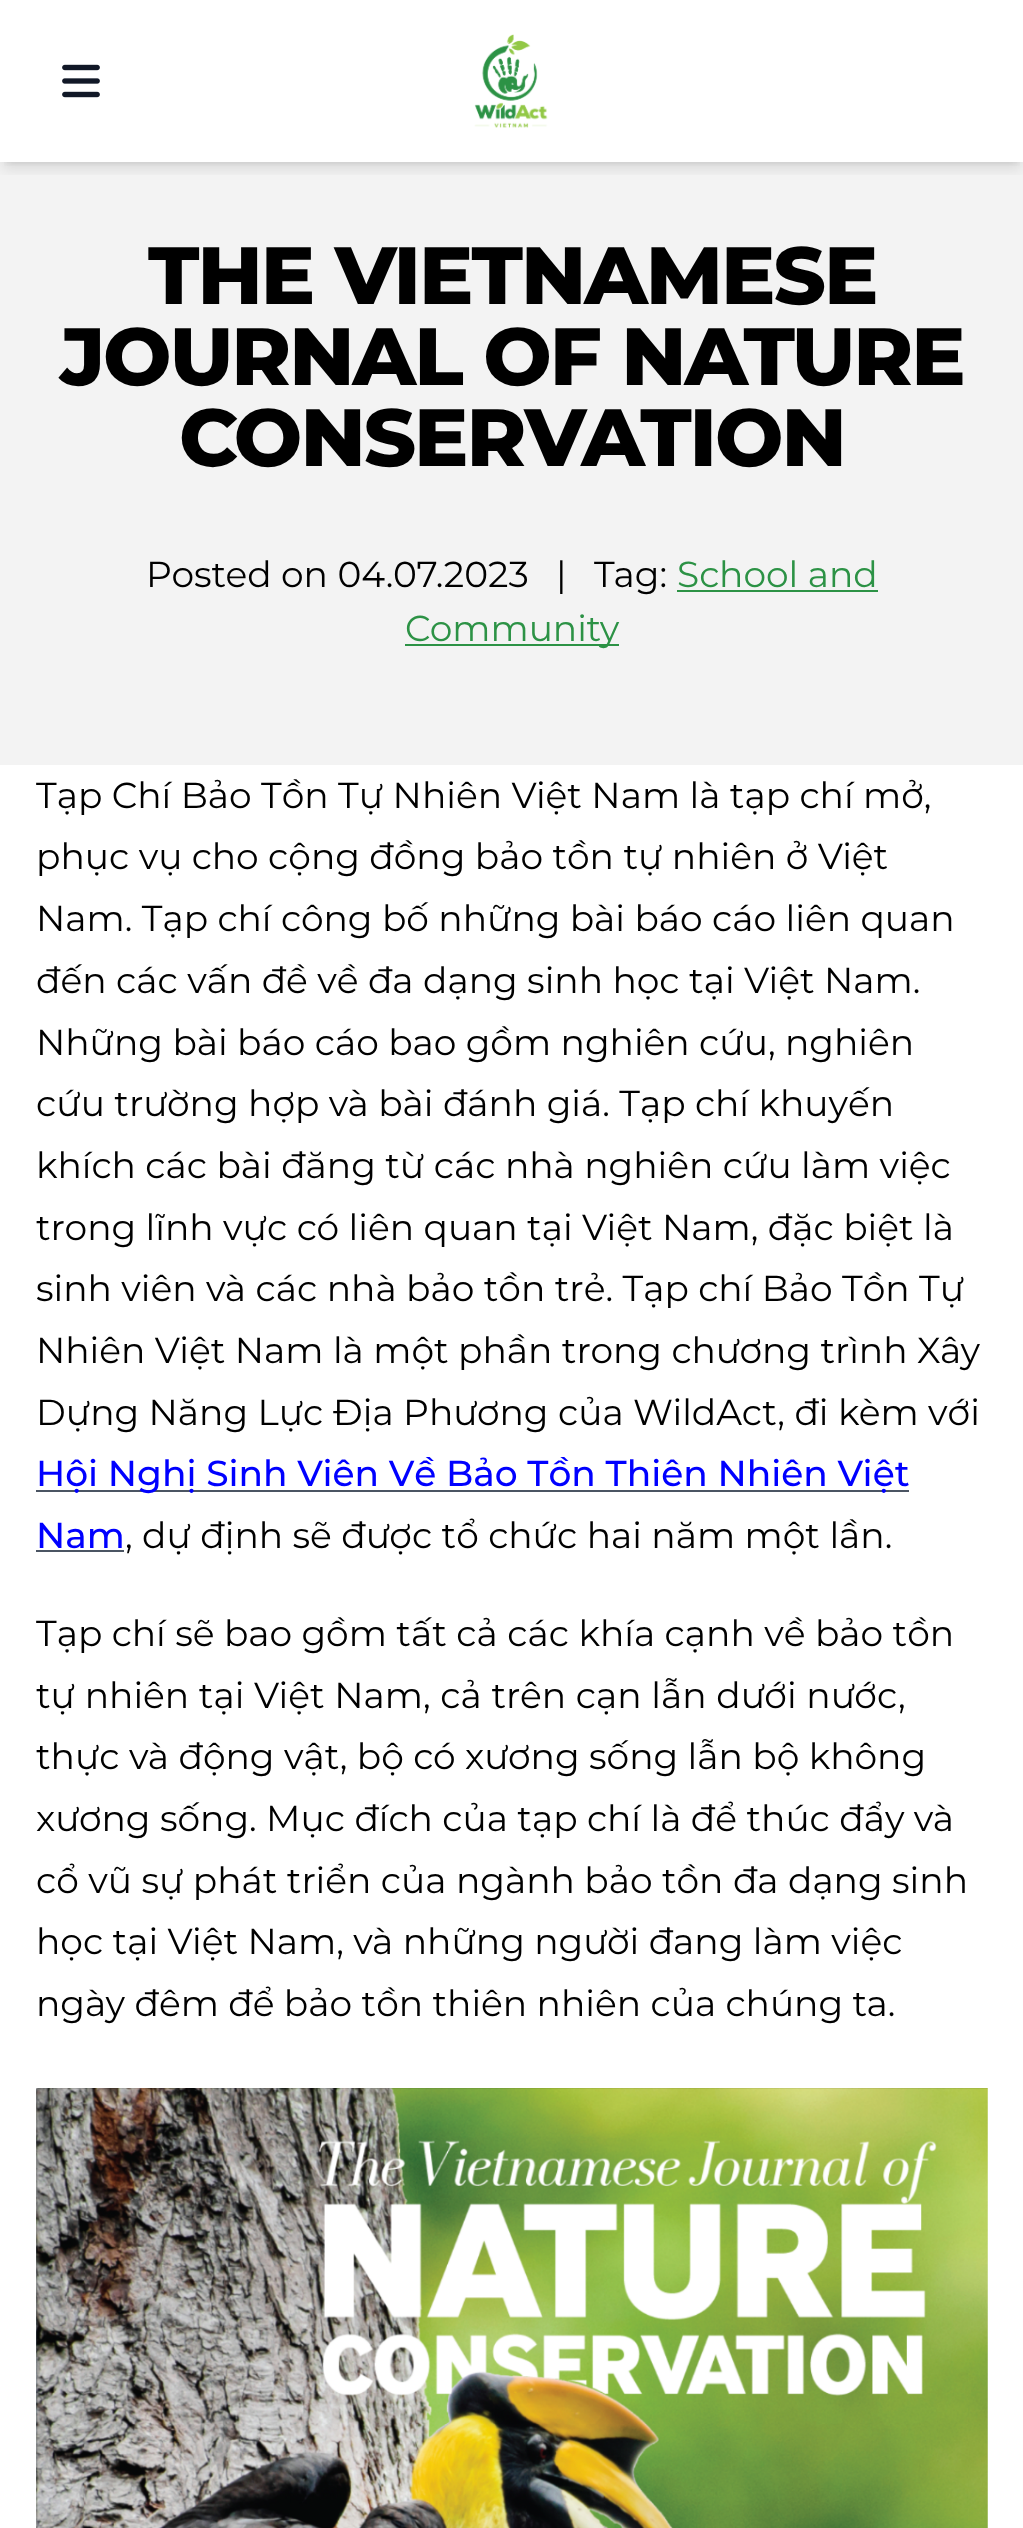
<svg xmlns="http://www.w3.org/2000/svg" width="1023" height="2528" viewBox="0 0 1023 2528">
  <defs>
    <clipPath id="clip1"><path d="M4 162h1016v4H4z"/></clipPath>
    <clipPath id="clip2"><path d="M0 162h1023v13H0z"/></clipPath>
  </defs>
  <rect width="100%" height="100%" fill="#fff"/>
  <path d="M0 162h1023v603H0z" fill="#f3f3f3"/>
  <g clip-path="url(#clip1)">
    <path d="M5 9h1014v153H5z" fill="#0000001a" filter="blur(4.5px)"/>
  </g>
  <g clip-path="url(#clip2)">
    <path d="M2 11h1020v158H2z" fill="#0000001a" filter="blur(7px)"/>
  </g>
  <image x="62" y="64" width="38" height="34" href="img/1.png"/>
  <image x="474" y="34" width="74" height="94" href="img/2.png"/>
  <path d="M677 590h201v2H677z" fill="#2c9245"/>
  <path d="M405 644h214v2H405z" fill="#2c9245"/>
  <path d="M36 1490h873v2H36z" fill="#4b5563"/>
  <path d="M36 1550h88v2H36z" fill="#4b5563"/>
  <image x="36" y="2088" width="952" height="440" href="img/3.png"/>
  <g font-family="Montserrat" font-size="81" font-weight="800" letter-spacing="-2" fill="#000">
    <text x="148" y="304">THE VIETNAMESE</text>
    <text x="60" y="385">JOURNAL OF NATURE</text>
    <text x="179" y="466">CONSERVATION</text>
  </g>
  <g font-family="Montserrat" font-size="36" fill="#000">
    <text x="146" y="587">Posted on 04.07.2023</text>
    <text x="556" y="587">|</text>
    <text x="594" y="587">Tag:</text>
  </g>
  <g font-family="Montserrat" font-size="36" fill="#2c9245">
    <text x="677" y="587">School and</text>
    <text x="405" y="641">Community</text>
  </g>
  <g font-family="Montserrat" font-size="36" fill="#000">
    <text x="36" y="808">Tạp Chí Bảo Tồn Tự Nhiên Việt Nam là tạp chí mở,</text>
    <text x="36" y="869">phục vụ cho cộng đồng bảo tồn tự nhiên ở Việt</text>
    <text x="36" y="931">Nam. Tạp chí công bố những bài báo cáo liên quan</text>
    <text x="36" y="993">đến các vấn đề về đa dạng sinh học tại Việt Nam.</text>
    <text x="36" y="1055">Những bài báo cáo bao gồm nghiên cứu, nghiên</text>
    <text x="36" y="1116">cứu trường hợp và bài đánh giá. Tạp chí khuyến</text>
    <text x="36" y="1178">khích các bài đăng từ các nhà nghiên cứu làm việc</text>
    <text x="36" y="1240">trong lĩnh vực có liên quan tại Việt Nam, đặc biệt là</text>
    <text x="36" y="1301">sinh viên và các nhà bảo tồn trẻ. Tạp chí Bảo Tồn Tự</text>
    <text x="36" y="1363">Nhiên Việt Nam là một phần trong chương trình Xây</text>
    <text x="36" y="1425">Dựng Năng Lực Địa Phương của WildAct, đi kèm với</text>
  </g>
  <g font-family="Montserrat" font-size="36" font-weight="500" fill="#00f">
    <text x="36" y="1486">Hội Nghị Sinh Viên Về Bảo Tồn Thiên Nhiên Việt</text>
    <text x="36" y="1548">Nam</text>
  </g>
  <g font-family="Montserrat" font-size="36" fill="#000">
    <text x="125" y="1548">, dự định sẽ được tổ chức hai năm một lần.</text>
    <text x="36" y="1646">Tạp chí sẽ bao gồm tất cả các khía cạnh về bảo tồn</text>
    <text x="36" y="1708" word-spacing="0.25">tự nhiên tại Việt Nam, cả trên cạn lẫn dưới nước,</text>
    <text x="36" y="1769">thực và động vật, bộ có xương sống lẫn bộ không</text>
    <text x="36" y="1831">xương sống. Mục đích của tạp chí là để thúc đẩy và</text>
    <text x="36" y="1893">cổ vũ sự phát triển của ngành bảo tồn đa dạng sinh</text>
    <text x="36" y="1954">học tại Việt Nam, và những người đang làm việc</text>
    <text x="36" y="2016">ngày đêm để bảo tồn thiên nhiên của chúng ta.</text>
  </g>
</svg>
